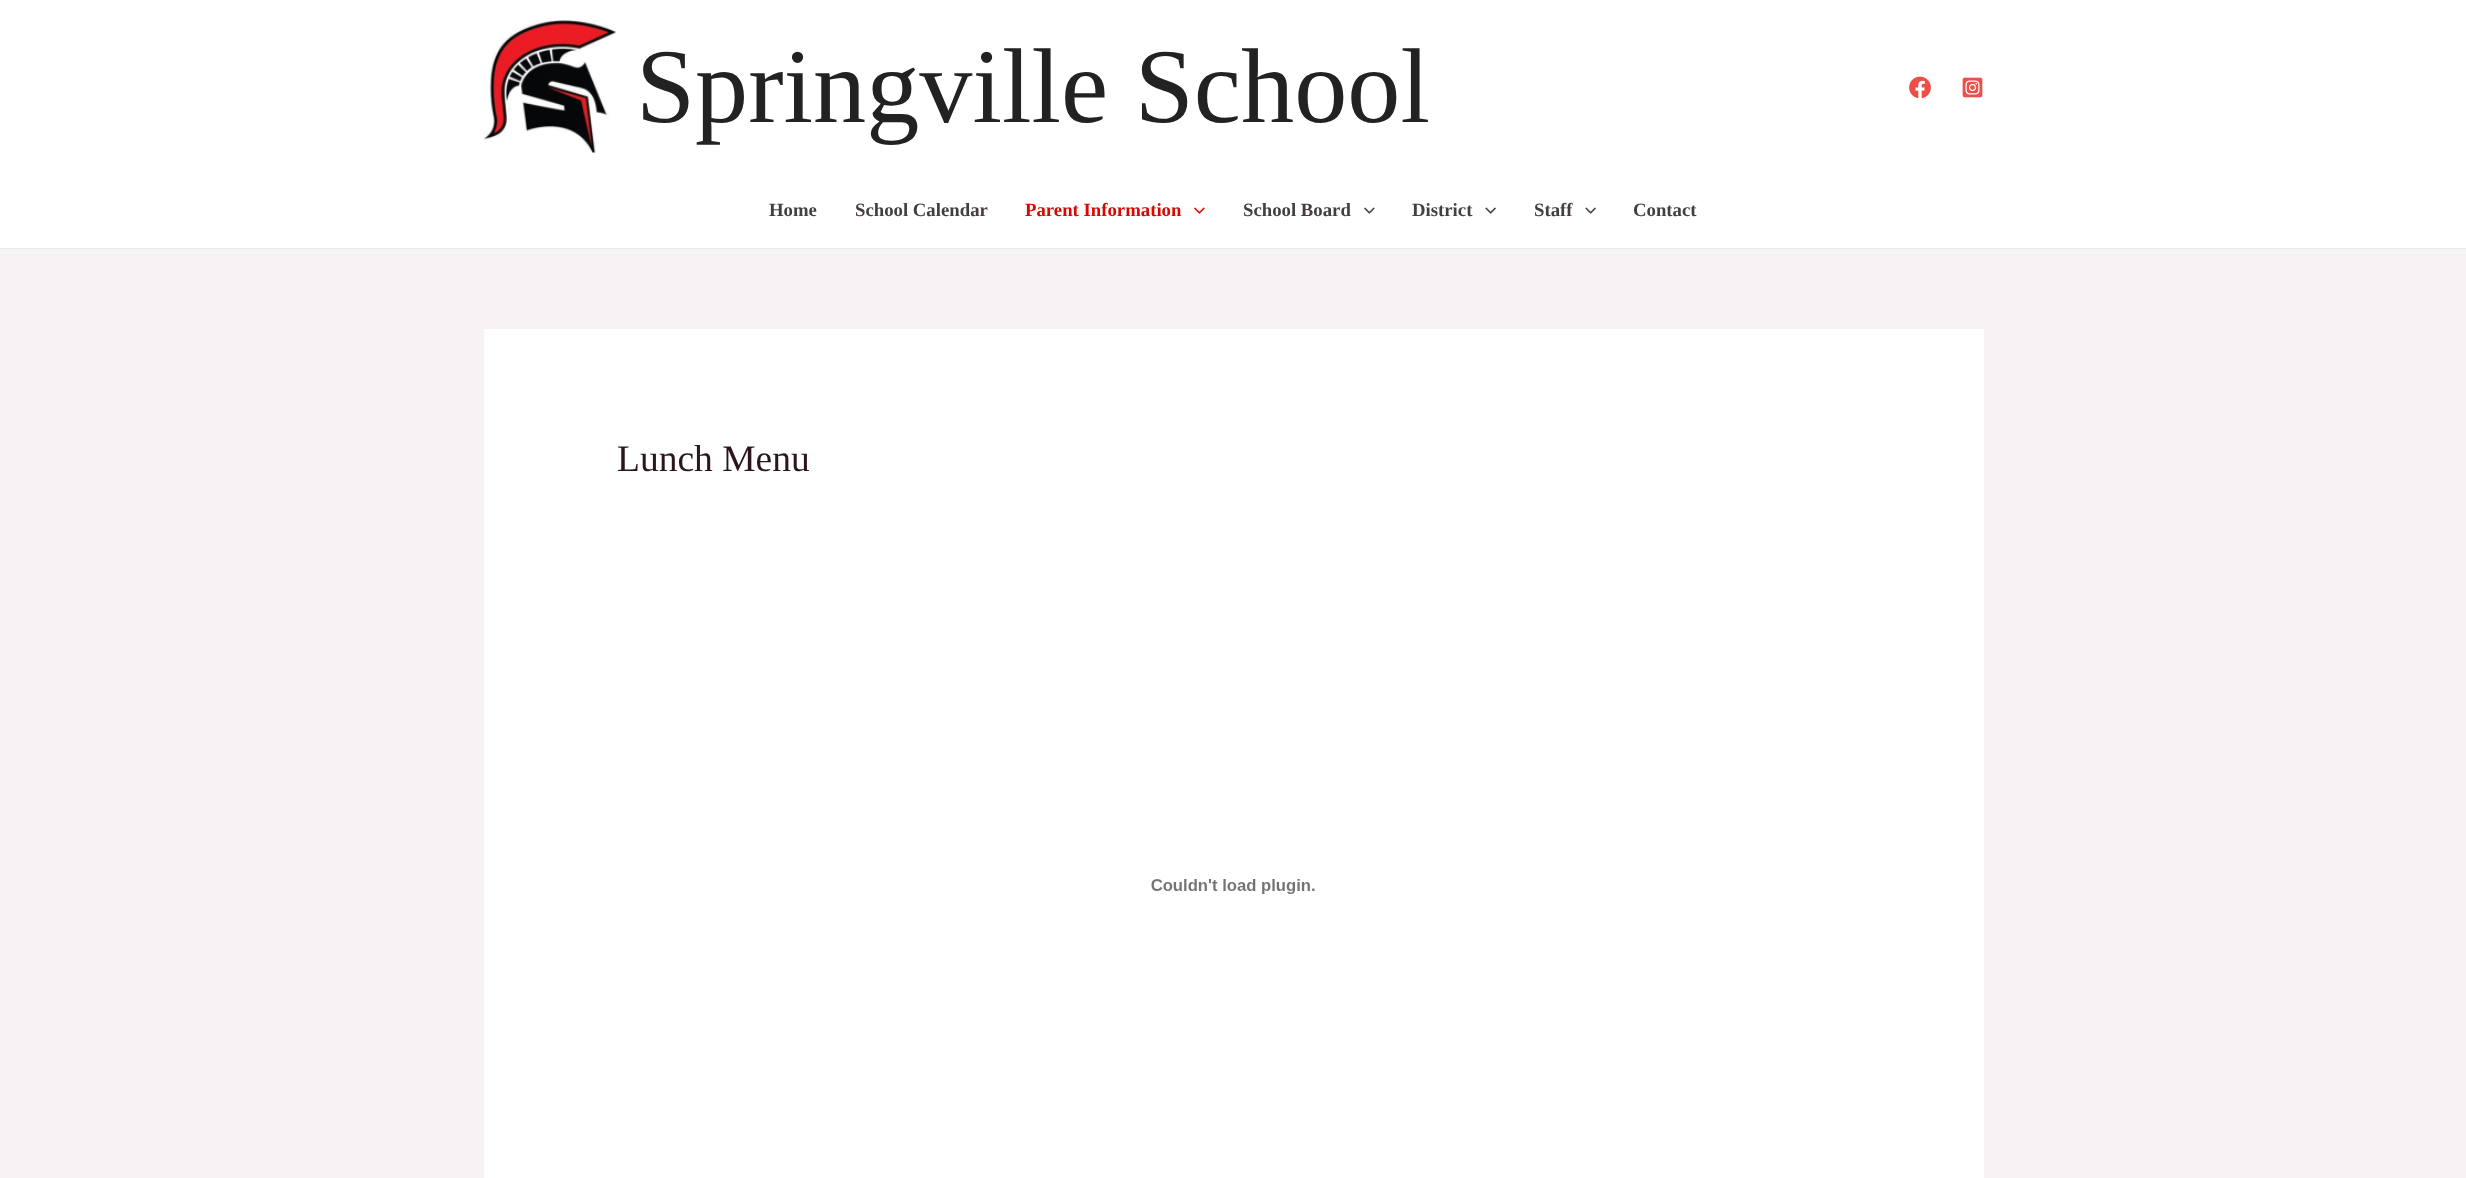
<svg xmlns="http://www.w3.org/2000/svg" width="2466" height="1178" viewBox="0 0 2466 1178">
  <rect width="100%" height="100%" fill="#f7f3f5"/>
  <path d="M0 0h2466v248H0z" fill="#fff"/>
  <image x="483" y="20" width="134" height="133" href="img/1.png"/>
  <image x="1909" y="76" width="22" height="23" href="img/2.png"/>
  <image x="1962" y="77" width="21" height="21" href="img/3.png"/>
  <path d="M0 248h2466v1H0z" fill="#eaeaea"/>
  <image x="1194" y="207" width="11" height="7" href="img/4.png"/>
  <image x="1364" y="207" width="11" height="7" href="img/5.png"/>
  <image x="1485" y="207" width="11" height="7" href="img/6.png"/>
  <image x="1585" y="207" width="11" height="7" href="img/6.png"/>
  <path d="M484 329h1500v849H484z" fill="#fff"/>
  <image x="1151" y="879" width="164" height="15" href="img/7.png"/>
  <text x="636" y="122" font-family="Liberation Serif" font-size="106.25" fill="#222">Springville School</text>
  <g font-family="Liberation Serif" font-size="18.75" font-weight="bold" fill="#453e3e">
    <text x="769" y="216">Home</text>
    <text x="855" y="216">School Calendar</text>
  </g>
  <text x="1025" y="216" font-family="Liberation Serif" font-size="18.75" font-weight="bold" fill="#d90700">Parent Information</text>
  <g font-family="Liberation Serif" font-size="18.75" font-weight="bold" fill="#453e3e">
    <text x="1243" y="216">School Board</text>
    <text x="1412" y="216">District</text>
    <text x="1534" y="216">Staff</text>
    <text x="1633" y="216">Contact</text>
  </g>
  <text x="617" y="471" font-family="Liberation Serif" font-size="37.5" fill="#2b161b">Lunch Menu</text>
</svg>
